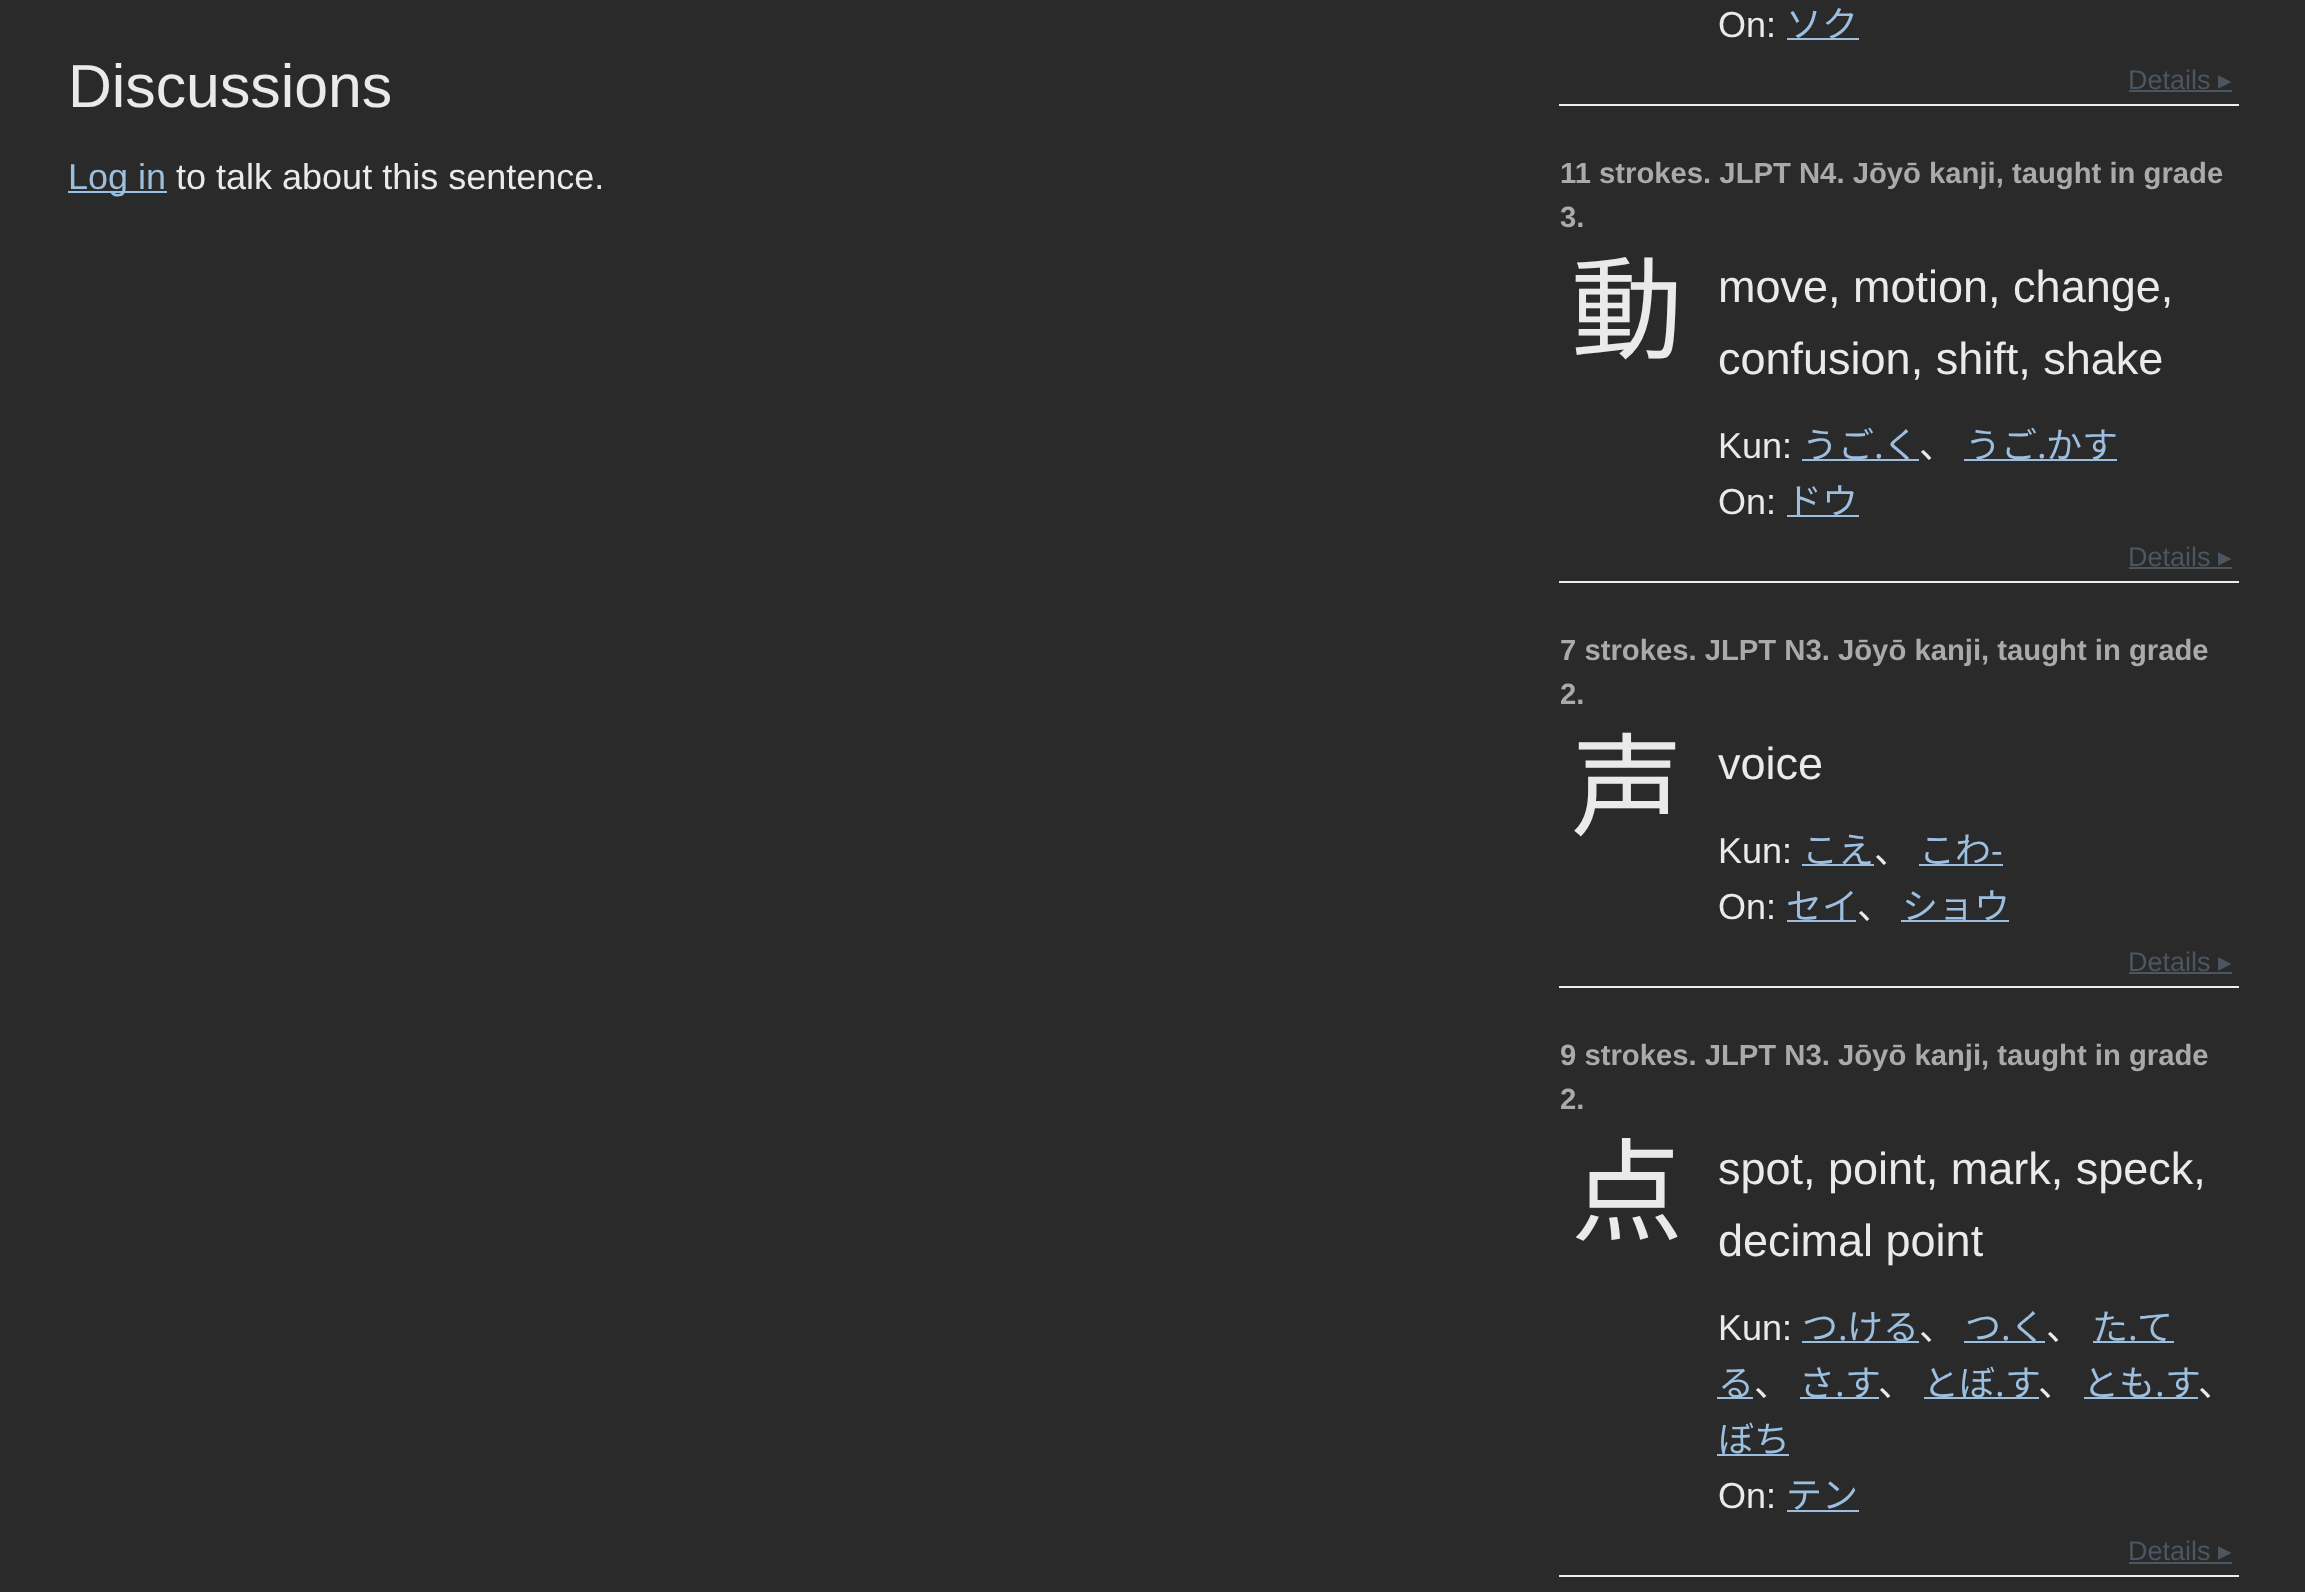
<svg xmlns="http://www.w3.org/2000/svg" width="2305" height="1592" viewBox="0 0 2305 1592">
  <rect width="100%" height="100%" fill="#2a2a2a"/>
  <path d="M68 191h99v2H68z" fill="#9cbedf"/>
  <path d="M1559 104h680v2H1559z" fill="#eee"/>
  <path d="M1787 38h72v2H1787z" fill="#9cbedf"/>
  <path d="M2129 90h103v2H2129z" fill="#4c5660"/>
  <path d="M1559 581h680v2H1559z" fill="#eee"/>
  <path d="M1802 459h117v2H1802z" fill="#9cbedf"/>
  <path d="M1964 459h153v2H1964z" fill="#9cbedf"/>
  <path d="M1787 515h72v2H1787z" fill="#9cbedf"/>
  <path d="M2129 567h103v2H2129z" fill="#4c5660"/>
  <path d="M1559 986h680v2H1559z" fill="#eee"/>
  <path d="M1919 864h84v2H1919z" fill="#9cbedf"/>
  <path d="M1802 864h72v2H1802z" fill="#9cbedf"/>
  <path d="M1787 920h69v2H1787z" fill="#9cbedf"/>
  <path d="M1901 920h108v2H1901z" fill="#9cbedf"/>
  <path d="M2129 972h103v2H2129z" fill="#4c5660"/>
  <path d="M1559 1575h680v2H1559z" fill="#eee"/>
  <path d="M1802 1341h117v2H1802z" fill="#9cbedf"/>
  <path d="M1964 1341h81v2H1964z" fill="#9cbedf"/>
  <path d="M2093 1341h81v2H2093z" fill="#9cbedf"/>
  <path d="M1717 1397h36v2H1717z" fill="#9cbedf"/>
  <path d="M1800 1397h79v2H1800z" fill="#9cbedf"/>
  <path d="M1924 1397h115v2H1924z" fill="#9cbedf"/>
  <path d="M2084 1397h114v2H2084z" fill="#9cbedf"/>
  <path d="M1717 1454h72v2H1717z" fill="#9cbedf"/>
  <path d="M1787 1510h72v2H1787z" fill="#9cbedf"/>
  <path d="M2129 1562h103v2H2129z" fill="#4c5660"/>
  <text x="68" y="107" font-family="Liberation Sans" font-size="60.75" fill="#eaeaea">Discussions</text>
  <text x="68" y="189" font-family="Liberation Sans" font-size="36" fill="#9cbedf">Log in</text>
  <g font-family="Liberation Sans" font-size="36" fill="#eaeaea">
    <text x="176" y="189">to talk about this sentence.</text>
    <text x="1718" y="37">On:</text>
  </g>
  <text x="1786" y="37" font-family="Noto Sans CJK JP" font-size="36" fill="#9cbedf">ソク</text>
  <text x="2128" y="89" font-family="Liberation Sans" font-size="27" fill="#4c5660">Details</text>
  <text x="2218" y="89" font-family="DejaVu Sans" font-size="27" fill="#4c5660">▸</text>
  <g font-family="Liberation Sans" font-size="29.25" font-weight="bold" fill="#aaa">
    <text x="1560" y="183">11 strokes. JLPT N4. Jōyō kanji, taught in grade</text>
    <text x="1560" y="227">3.</text>
  </g>
  <text x="1571" y="350" font-family="Noto Sans CJK JP" font-size="112" fill="#eaeaea">動</text>
  <g font-family="Liberation Sans" font-size="45" fill="#eaeaea">
    <text x="1718" y="302">move, motion, change,</text>
    <text x="1718" y="374">confusion, shift, shake</text>
  </g>
  <text x="1718" y="458" font-family="Liberation Sans" font-size="36" fill="#eaeaea">Kun:</text>
  <text x="1802" y="458" font-family="Noto Sans CJK JP" font-size="36" fill="#9cbedf">うご</text>
  <text x="1874" y="458" font-family="Noto Sans" font-size="36" fill="#9cbedf">.</text>
  <text x="1883" y="458" font-family="Noto Sans CJK JP" font-size="36" fill="#9cbedf">く</text>
  <text x="1919" y="458" font-family="Noto Sans CJK JP" font-size="36" fill="#eaeaea">、</text>
  <text x="1965" y="458" font-family="Noto Sans CJK JP" font-size="36" fill="#9cbedf">うご</text>
  <text x="2037" y="458" font-family="Noto Sans" font-size="36" fill="#9cbedf">.</text>
  <text x="2046" y="458" font-family="Noto Sans CJK JP" font-size="36" fill="#9cbedf">かす</text>
  <text x="1718" y="514" font-family="Liberation Sans" font-size="36" fill="#eaeaea">On:</text>
  <text x="1786" y="514" font-family="Noto Sans CJK JP" font-size="36" fill="#9cbedf">ドウ</text>
  <text x="2128" y="566" font-family="Liberation Sans" font-size="27" fill="#4c5660">Details</text>
  <text x="2218" y="566" font-family="DejaVu Sans" font-size="27" fill="#4c5660">▸</text>
  <g font-family="Liberation Sans" font-size="29.25" font-weight="bold" fill="#aaa">
    <text x="1560" y="660">7 strokes. JLPT N3. Jōyō kanji, taught in grade</text>
    <text x="1560" y="704">2.</text>
  </g>
  <text x="1571" y="827" font-family="Noto Sans CJK JP" font-size="112" fill="#eaeaea">声</text>
  <text x="1718" y="779" font-family="Liberation Sans" font-size="45" fill="#eaeaea">voice</text>
  <text x="1718" y="863" font-family="Liberation Sans" font-size="36" fill="#eaeaea">Kun:</text>
  <g font-family="Noto Sans CJK JP" font-size="36" fill="#9cbedf">
    <text x="1802" y="863">こえ</text>
    <text x="1919" y="863">こわ</text>
  </g>
  <text x="1991" y="863" font-family="Noto Sans" font-size="36" fill="#9cbedf">-</text>
  <text x="1874" y="863" font-family="Noto Sans CJK JP" font-size="36" fill="#eaeaea">、</text>
  <text x="1718" y="919" font-family="Liberation Sans" font-size="36" fill="#eaeaea">On:</text>
  <text x="1786" y="919" font-family="Noto Sans CJK JP" font-size="36" fill="#9cbedf">セイ</text>
  <text x="1857" y="919" font-family="Noto Sans CJK JP" font-size="36" fill="#eaeaea">、</text>
  <text x="1902" y="919" font-family="Noto Sans CJK JP" font-size="36" fill="#9cbedf">ショウ</text>
  <text x="2128" y="971" font-family="Liberation Sans" font-size="27" fill="#4c5660">Details</text>
  <text x="2218" y="971" font-family="DejaVu Sans" font-size="27" fill="#4c5660">▸</text>
  <g font-family="Liberation Sans" font-size="29.25" font-weight="bold" fill="#aaa">
    <text x="1560" y="1065">9 strokes. JLPT N3. Jōyō kanji, taught in grade</text>
    <text x="1560" y="1109">2.</text>
  </g>
  <text x="1571" y="1232" font-family="Noto Sans CJK JP" font-size="112" fill="#eaeaea">点</text>
  <g font-family="Liberation Sans" font-size="45" fill="#eaeaea">
    <text x="1718" y="1184">spot, point, mark, speck,</text>
    <text x="1718" y="1256">decimal point</text>
  </g>
  <text x="1718" y="1340" font-family="Liberation Sans" font-size="36" fill="#eaeaea">Kun:</text>
  <text x="1802" y="1340" font-family="Noto Sans CJK JP" font-size="36" fill="#9cbedf">つ</text>
  <text x="1838" y="1340" font-family="Noto Sans" font-size="36" fill="#9cbedf">.</text>
  <text x="1847" y="1340" font-family="Noto Sans CJK JP" font-size="36" fill="#9cbedf">ける</text>
  <text x="1919" y="1340" font-family="Noto Sans CJK JP" font-size="36" fill="#eaeaea">、</text>
  <text x="1965" y="1340" font-family="Noto Sans CJK JP" font-size="36" fill="#9cbedf">つ</text>
  <text x="2001" y="1340" font-family="Noto Sans" font-size="36" fill="#9cbedf">.</text>
  <text x="2010" y="1340" font-family="Noto Sans CJK JP" font-size="36" fill="#9cbedf">く</text>
  <text x="2046" y="1340" font-family="Noto Sans CJK JP" font-size="36" fill="#eaeaea">、</text>
  <text x="2092" y="1340" font-family="Noto Sans CJK JP" font-size="36" fill="#9cbedf">た</text>
  <text x="2128" y="1340" font-family="Noto Sans" font-size="36" fill="#9cbedf">.</text>
  <g font-family="Noto Sans CJK JP" font-size="36" fill="#9cbedf">
    <text x="2137" y="1340">て</text>
    <text x="1718" y="1396">る</text>
  </g>
  <text x="1754" y="1396" font-family="Noto Sans CJK JP" font-size="36" fill="#eaeaea">、</text>
  <text x="1799" y="1396" font-family="Noto Sans CJK JP" font-size="36" fill="#9cbedf">さ</text>
  <text x="1835" y="1396" font-family="Noto Sans" font-size="36" fill="#9cbedf">.</text>
  <text x="1845" y="1396" font-family="Noto Sans CJK JP" font-size="36" fill="#9cbedf">す</text>
  <text x="1878" y="1396" font-family="Noto Sans CJK JP" font-size="36" fill="#eaeaea">、</text>
  <text x="1923" y="1396" font-family="Noto Sans CJK JP" font-size="36" fill="#9cbedf">とぼ</text>
  <text x="1995" y="1396" font-family="Noto Sans" font-size="36" fill="#9cbedf">.</text>
  <text x="2005" y="1396" font-family="Noto Sans CJK JP" font-size="36" fill="#9cbedf">す</text>
  <text x="2038" y="1396" font-family="Noto Sans CJK JP" font-size="36" fill="#eaeaea">、</text>
  <text x="2083" y="1396" font-family="Noto Sans CJK JP" font-size="36" fill="#9cbedf">とも</text>
  <text x="2155" y="1396" font-family="Noto Sans" font-size="36" fill="#9cbedf">.</text>
  <text x="2165" y="1396" font-family="Noto Sans CJK JP" font-size="36" fill="#9cbedf">す</text>
  <text x="2198" y="1396" font-family="Noto Sans CJK JP" font-size="36" fill="#eaeaea">、</text>
  <text x="1718" y="1452" font-family="Noto Sans CJK JP" font-size="36" fill="#9cbedf">ぼち</text>
  <text x="1718" y="1508" font-family="Liberation Sans" font-size="36" fill="#eaeaea">On:</text>
  <text x="1786" y="1508" font-family="Noto Sans CJK JP" font-size="36" fill="#9cbedf">テン</text>
  <text x="2128" y="1560" font-family="Liberation Sans" font-size="27" fill="#4c5660">Details</text>
  <text x="2218" y="1560" font-family="DejaVu Sans" font-size="27" fill="#4c5660">▸</text>
</svg>
